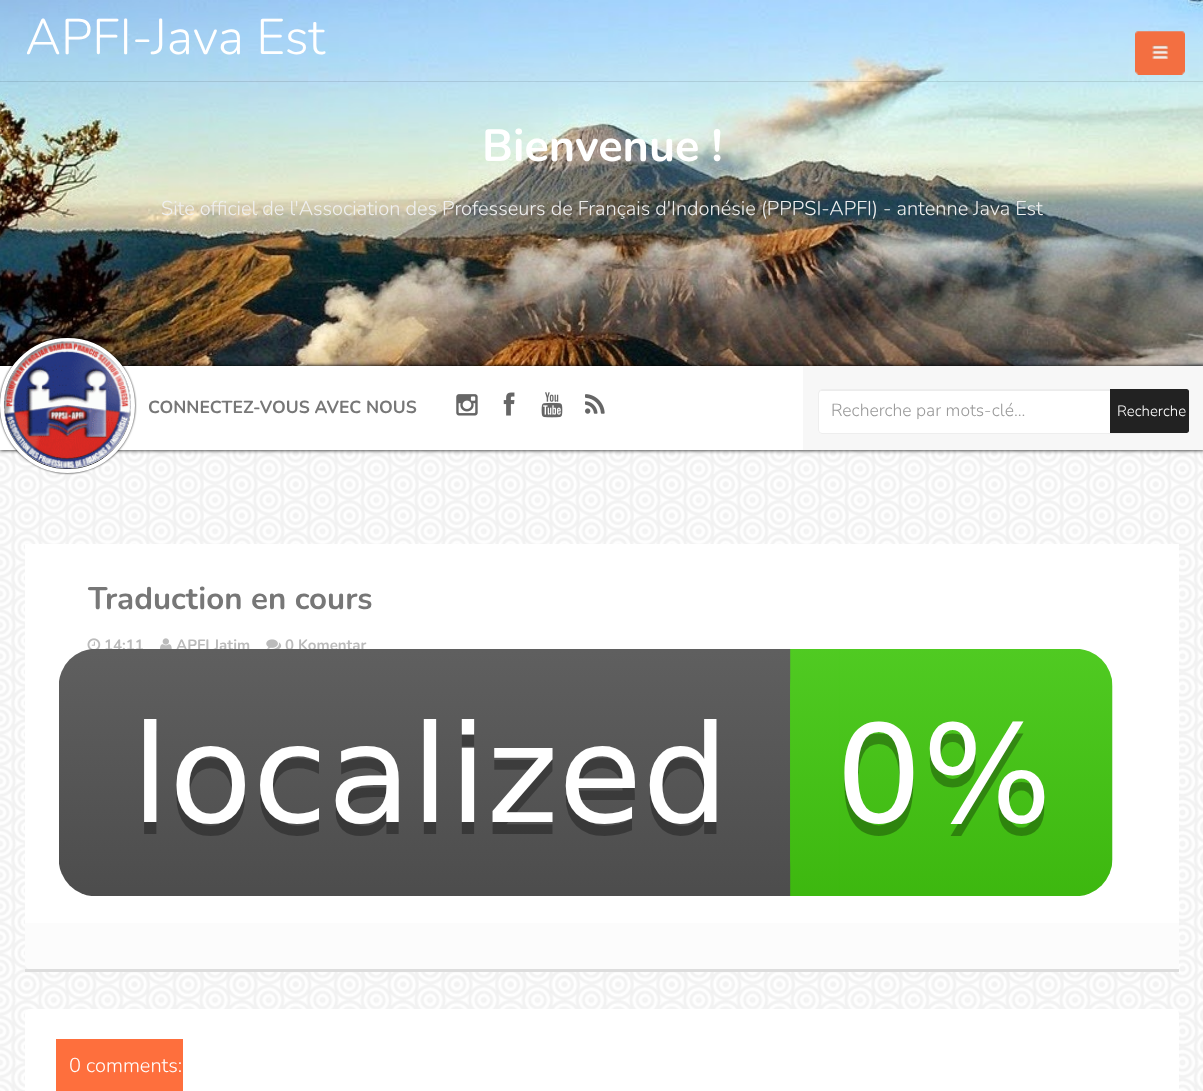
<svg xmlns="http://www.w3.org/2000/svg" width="1203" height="1091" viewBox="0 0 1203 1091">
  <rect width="100%" height="100%" fill="#fff"/>
  <image x="0" y="450" width="1203" height="641" href="img/1.png"/>
  <image x="0" y="0" width="1203" height="366" href="img/2.png"/>
  <path d="M0 81h1203v1H0z" fill="#0000001a"/>
  <image x="1135" y="31" width="50" height="44" href="img/3.png"/>
  <path d="M0 366h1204v84H0z" fill="#000" filter="blur(2px)"/>
  <path d="M0 366h803v84H0z" fill="#fff"/>
  <rect y="338" width="135" height="135" rx="67.5" fill="#000" filter="blur(1px)"/>
  <circle cx="67.5" cy="405.5" r="65.5" fill="none" stroke="#fff" stroke-width="4"/>
  <image x="3" y="341" width="128" height="128" href="img/4.png"/>
  <image x="456" y="394" width="22" height="22" href="img/5.png"/>
  <image x="503" y="392" width="12" height="24" href="img/6.png"/>
  <image x="541" y="392" width="22" height="26" href="img/7.png"/>
  <image x="585" y="394" width="20" height="20" href="img/8.png"/>
  <path d="M803 366h400v84H803z" fill="#f7f7f7"/>
  <rect x="818" y="389" width="325" height="45" rx="4" fill="#fff"/>
  <path d="M821 391H1139C1140 391 1141 392 1141 394V392C1141 391 1140 390 1138 390H822C820 390 819 391 819 392V394C819 392 820 391 821 391Z" fill="#ececec"/>
  <rect x="818.5" y="389.5" width="324" height="44" rx="3.5" fill="none" stroke="#eee"/>
  <path d="M1110 389H1186.5C1188 389 1189 390 1189 391.5V430.5C1189 432 1188 433 1186.5 433H1110Z" fill="#222"/>
  <path d="M25 969h1154v3H25z" fill="#ddd"/>
  <path d="M25 544h1154v379H25z" fill="#fff"/>
  <image x="87" y="638" width="14" height="12" href="img/9.png"/>
  <image x="160" y="638" width="12" height="11" href="img/10.png"/>
  <image x="266" y="639" width="16" height="10" href="img/11.png"/>
  <path d="M25 923H1179V964C1179 967 1177 969 1174 969H30C27 969 25 967 25 964Z" fill="#fcfcfc"/>
  <rect x="25" y="1009" width="1154" height="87" rx="5" fill="#fff"/>
  <path d="M56 1039h127v52H56z" fill="#fe6f3d"/>
  <text x="25" y="54" font-family="Nunito" font-size="50" font-weight="300" fill="#fff">APFI-Java Est</text>
  <text x="482" y="161" font-family="Nunito" font-size="45" font-weight="bold" fill="#fff">Bienvenue !</text>
  <text x="161" y="215" font-family="Nunito" font-size="20" font-weight="300" fill="#efefef">Site officiel de l'Association des Professeurs de Français d'Indonésie (PPPSI-APFI) - antenne Java Est</text>
  <text x="148" y="413" font-family="Nunito" font-size="17.5" font-weight="bold" fill="#777">CONNECTEZ-VOUS AVEC NOUS</text>
  <text x="831" y="416" font-family="Nunito" font-size="17.5" font-weight="300" fill="#999">Recherche par mots-clé...</text>
  <text x="1117" y="416" font-family="Nunito" font-size="15" font-weight="300" fill="#fff">Recherche</text>
  <text x="88" y="609" font-family="Nunito" font-size="31.25" font-weight="bold" fill="#777">Traduction en cours</text>
  <g font-family="Nunito" font-size="15" font-weight="bold" fill="#bbb">
    <text x="104" y="650">14:11</text>
    <text x="176" y="650">APFI Jatim</text>
    <text x="285" y="650">0 Komentar</text>
  </g>
  <image x="59" y="649" width="1054" height="247" href="img/12.png"/>
  <text x="69" y="1072" font-family="Nunito" font-size="20" font-weight="300" fill="#fff">0 comments:</text>
</svg>
